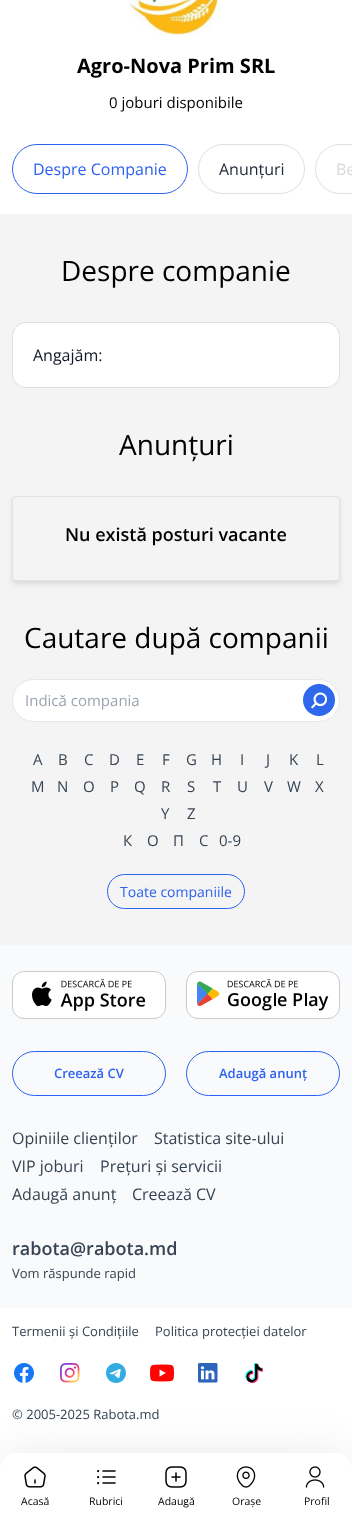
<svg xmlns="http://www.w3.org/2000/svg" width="352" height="1525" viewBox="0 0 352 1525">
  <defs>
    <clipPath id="clip1"><path d="M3 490H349V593H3ZM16 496H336C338 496 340 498 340 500V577C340 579 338 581 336 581H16C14 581 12 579 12 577V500C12 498 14 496 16 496Z" clip-rule="evenodd"/></clipPath>
  </defs>
  <rect width="100%" height="100%" fill="#f9fafb"/>
  <path d="M0 0h352v214H0z" fill="#fff"/>
  <image x="128" y="0" width="94" height="35" href="img/1.png"/>
  <rect x="12.5" y="144.5" width="175" height="49" rx="24.5" fill="none" stroke="#2d62ef"/>
  <rect x="198.5" y="144.5" width="106" height="49" rx="24.5" fill="none" stroke="#dfdfe1"/>
  <rect x="315.5" y="144.5" width="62" height="49" rx="24.5" fill="none" stroke="#dfdfe1"/>
  <path d="M0 214h352v731H0z" fill="#f4f4f4"/>
  <rect x="12.5" y="322.5" width="327" height="65" rx="13.5" fill="#fff" stroke="#dfdfe1"/>
  <g clip-path="url(#clip1)">
    <rect x="12" y="499" width="328" height="85" rx="4" fill="#0000001a" filter="blur(2.5px)"/>
  </g>
  <rect x="12.5" y="496.5" width="327" height="84" rx="3.5" fill="none" stroke="#dde3ea"/>
  <rect x="12.5" y="679.5" width="327" height="42" rx="21" fill="#fff" stroke="#e5e7eb"/>
  <circle cx="319" cy="700" r="16" fill="#2f68ed"/>
  <image x="311" y="692" width="17" height="17" href="img/2.png"/>
  <rect x="107.5" y="874.5" width="137" height="34" rx="17" fill="none" stroke="#2d62ef"/>
  <path d="M0 1308h352v161H0z" fill="#fff"/>
  <image x="14" y="1363" width="20" height="20" href="img/10.png"/>
  <image x="60" y="1363" width="20" height="20" href="img/11.png"/>
  <image x="106" y="1363" width="20" height="20" href="img/12.png"/>
  <image x="198" y="1363" width="20" height="20" href="img/14.png"/>
  <image x="245" y="1363" width="18" height="20" href="img/15.png"/>
  <rect y="1467" width="352" height="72" rx="16" fill="#00000024" filter="blur(28px)"/>
  <path d="M16 1453H336C345 1453 352 1460 352 1469V1525H0V1469C0 1460 7 1453 16 1453Z" fill="#fff"/>
  <image x="24" y="1466" width="22" height="22" href="img/3.png"/>
  <image x="97" y="1470" width="19" height="15" href="img/4.png"/>
  <image x="165" y="1466" width="22" height="22" href="img/5.png"/>
  <image x="236" y="1466" width="20" height="22" href="img/6.png"/>
  <image x="305" y="1466" width="20" height="22" href="img/7.png"/>
  <rect x="12.5" y="971.5" width="153" height="47" rx="11.5" fill="#fff" stroke="#cbcbcb"/>
  <image x="32" y="979" width="114" height="32" href="img/8.png"/>
  <rect x="186.5" y="971.5" width="153" height="47" rx="11.5" fill="#fff" stroke="#cbcbcb"/>
  <image x="197" y="979" width="132" height="32" href="img/9.png"/>
  <rect x="12.5" y="1051.5" width="153" height="44" rx="22" fill="none" stroke="#2d62ef"/>
  <rect x="186.5" y="1051.5" width="153" height="44" rx="22" fill="none" stroke="#2d62ef"/>
  <image x="150" y="1364" width="24" height="18" href="img/13.png"/>
  <text x="77" y="73" font-family="Open Sans" font-size="20" font-weight="bold" fill="#000">Agro-Nova Prim SRL</text>
  <text x="109" y="108" font-family="Open Sans" font-size="15" fill="#000">0 joburi disponibile</text>
  <text x="33" y="175" font-family="Open Sans" font-size="16" fill="#2d62ef">Despre Companie</text>
  <text x="219" y="175" font-family="Open Sans" font-size="16" fill="#1f2937">Anunțuri</text>
  <text x="336" y="175" font-family="Open Sans" font-size="16" fill="#d9d9d9">Be</text>
  <text x="61" y="281" font-family="Open Sans" font-size="28" fill="#000">Despre companie</text>
  <text x="33" y="361" font-family="Open Sans" font-size="16" fill="#111827">Angajăm:</text>
  <text x="119" y="455" font-family="Open Sans" font-size="28" fill="#000">Anunțuri</text>
  <text x="65" y="541" font-family="Open Sans" font-size="18" font-weight="600" fill="#000">Nu există posturi vacante</text>
  <text x="24" y="648" font-family="Open Sans" font-size="28" fill="#000">Cautare după companii</text>
  <text x="25" y="706" font-family="Open Sans" font-size="15" fill="#9ca3af">Indică compania</text>
  <g font-family="Open Sans" font-size="15" fill="#354353">
    <text x="33" y="765">A</text>
    <text x="58" y="765">B</text>
    <text x="84" y="765">C</text>
    <text x="109" y="765">D</text>
    <text x="136" y="765">E</text>
    <text x="162" y="765">F</text>
    <text x="186" y="765">G</text>
    <text x="211" y="765">H</text>
    <text x="240" y="765">I</text>
    <text x="266" y="765">J</text>
    <text x="289" y="765">K</text>
    <text x="316" y="765">L</text>
    <text x="31" y="792">M</text>
    <text x="57" y="792">N</text>
    <text x="83" y="792">O</text>
    <text x="110" y="792">P</text>
    <text x="134" y="792">Q</text>
    <text x="161" y="792">R</text>
    <text x="187" y="792">S</text>
    <text x="213" y="792">T</text>
    <text x="237" y="792">U</text>
    <text x="264" y="792">V</text>
    <text x="287" y="792">W</text>
    <text x="315" y="792">X</text>
    <text x="161" y="819">Y</text>
    <text x="187" y="819">Z</text>
    <text x="123" y="846">К</text>
    <text x="147" y="846">О</text>
    <text x="173" y="846">П</text>
    <text x="199" y="846">С</text>
    <text x="219" y="846">0-9</text>
  </g>
  <text x="120" y="897" font-family="Open Sans" font-size="14" fill="#2d62ef">Toate companiile</text>
  <g font-family="Open Sans" font-size="10.5" fill="#000">
    <text x="21" y="1505">Acasă</text>
    <text x="89" y="1505">Rubrici</text>
    <text x="158" y="1505">Adaugă</text>
    <text x="232" y="1505">Orașe</text>
    <text x="304" y="1505">Profil</text>
  </g>
  <g font-family="Open Sans" font-size="13" font-weight="600" fill="#2d62ef">
    <text x="54" y="1078">Creează CV</text>
    <text x="219" y="1078">Adaugă anunț</text>
  </g>
  <g font-family="Open Sans" font-size="16" fill="#354353">
    <text x="12" y="1144">Opiniile clienților</text>
    <text x="154" y="1144">Statistica site-ului</text>
    <text x="12" y="1172">VIP joburi</text>
    <text x="100" y="1172">Prețuri și servicii</text>
    <text x="12" y="1200">Adaugă anunț</text>
    <text x="132" y="1200">Creează CV</text>
  </g>
  <text x="12" y="1255" font-family="Open Sans" font-size="18" font-weight="600" fill="#354353">rabota@rabota.md</text>
  <g font-family="Open Sans" font-size="13" fill="#354353">
    <text x="12" y="1278">Vom răspunde rapid</text>
    <text x="12" y="1336">Termenii și Condițiile</text>
    <text x="155" y="1336">Politica protecției datelor</text>
    <text x="12" y="1419">© 2005-2025 Rabota.md</text>
  </g>
</svg>
